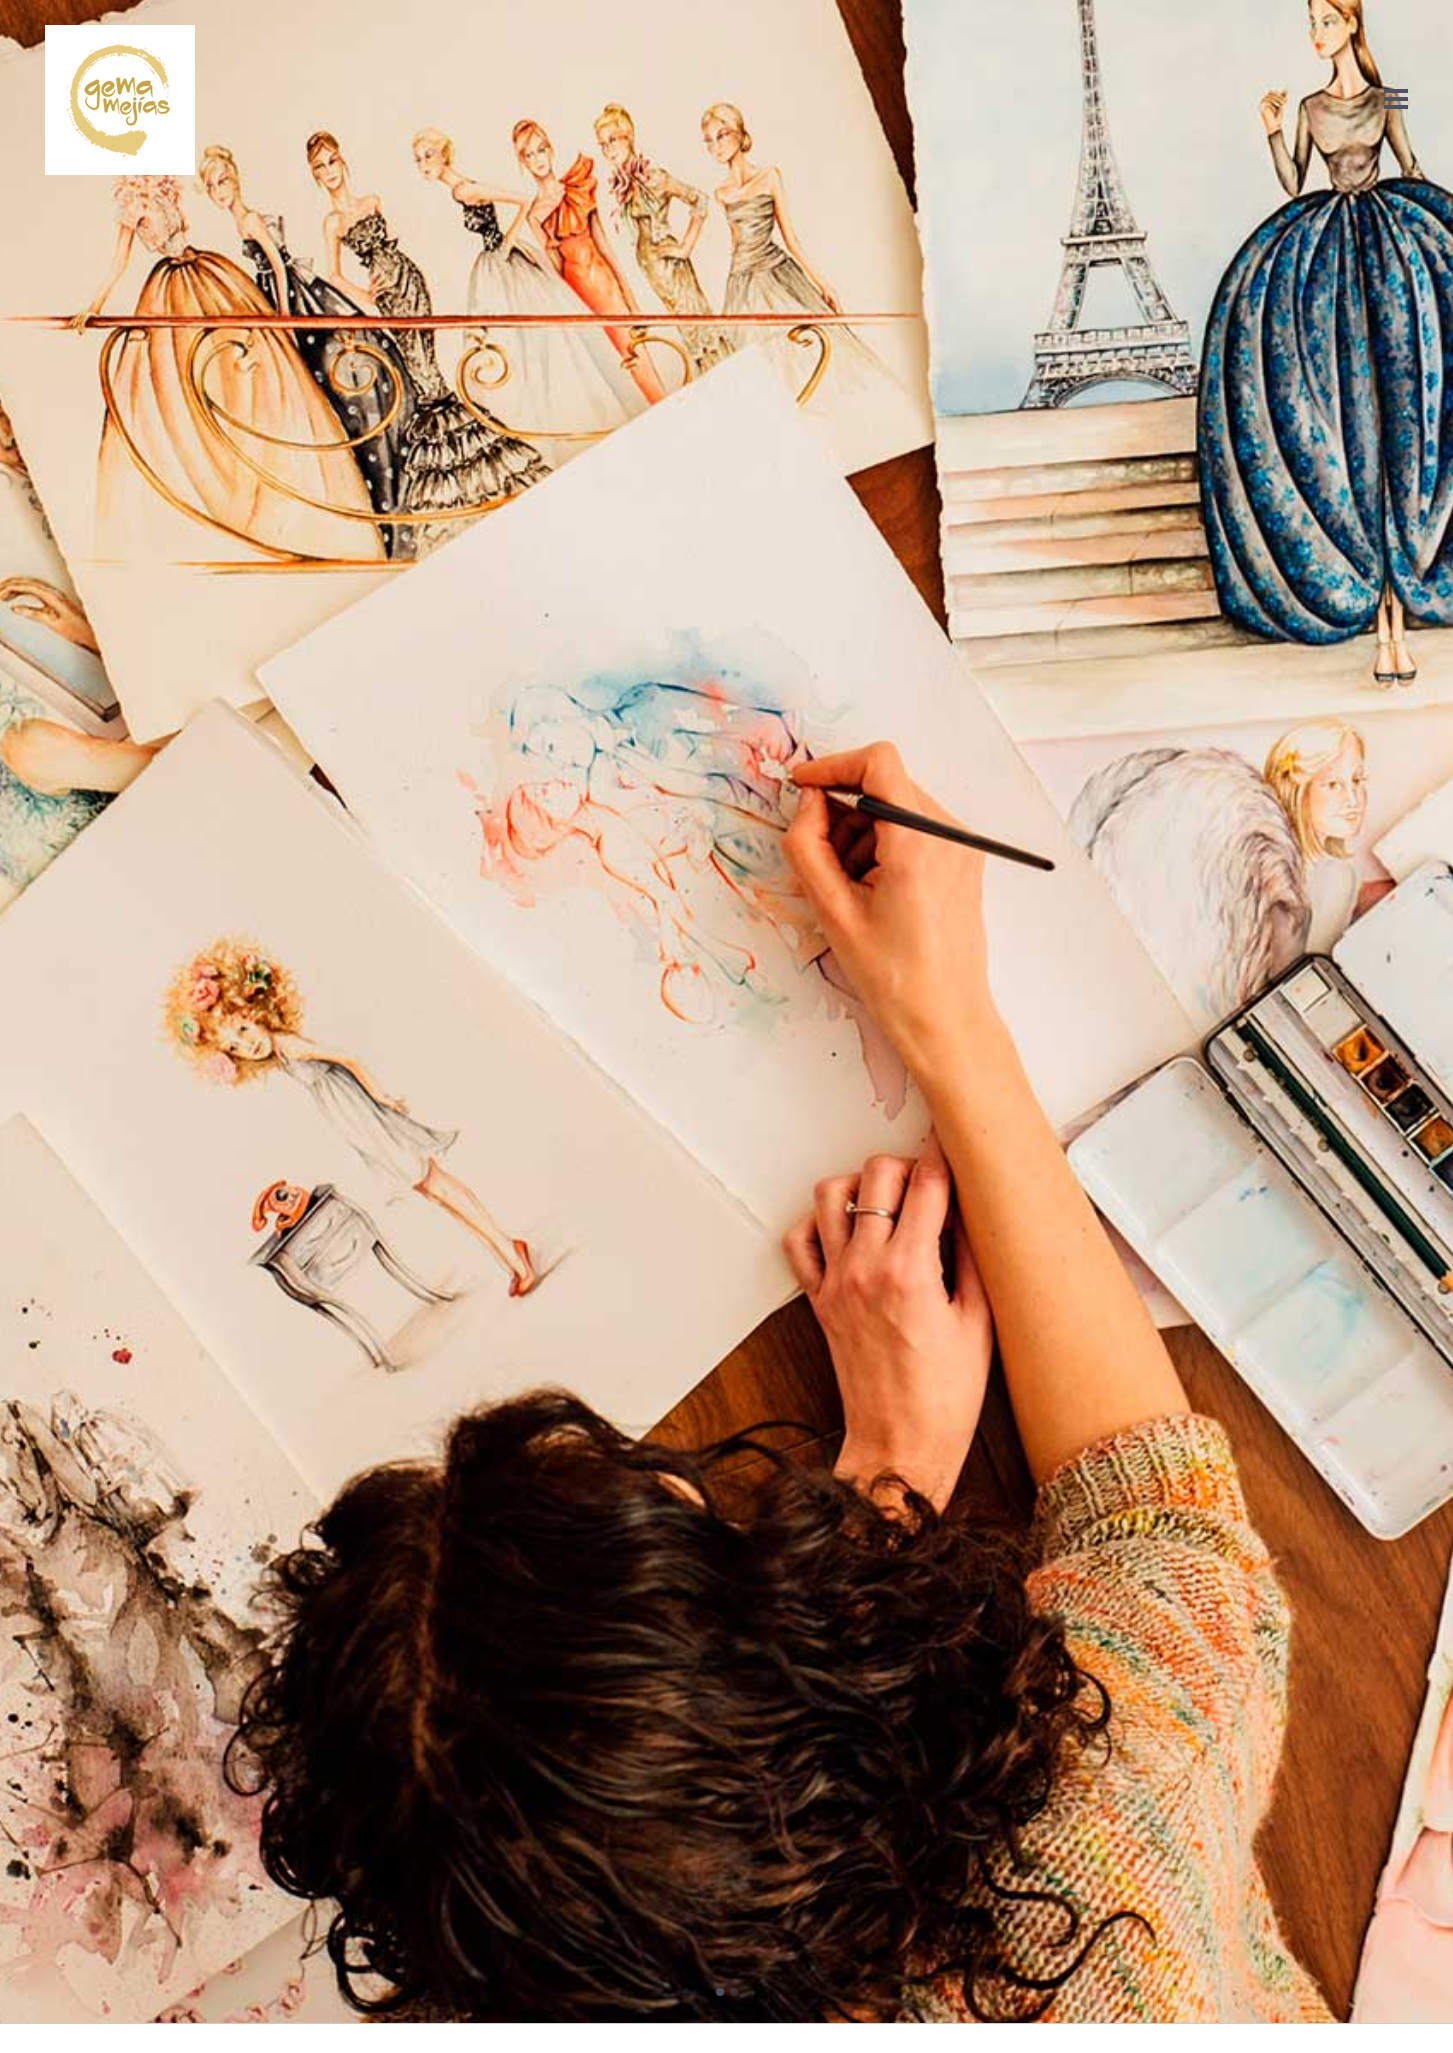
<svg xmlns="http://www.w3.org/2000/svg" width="1453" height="2053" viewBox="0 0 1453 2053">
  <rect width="100%" height="100%" fill="#fff"/>
  <image x="0" y="0" width="1453" height="2023" href="img/1.png"/>
  <circle cx="720" cy="1992" r="4" fill="#505063"/>
  <circle cx="734" cy="1992" r="4" fill="#50506366"/>
  <path d="M45 25h150v150H45z" fill="#fefefe"/>
  <image x="66" y="42" width="104" height="115" href="img/2.png"/>
  <path d="M1384 97h24v4H1384z" fill="#505063"/>
  <path d="M1384 89h24v4H1384z" fill="#505063"/>
  <path d="M1384 105h24v4H1384z" fill="#505063"/>
  <path d="M0 2023h1453v1H0z" fill="#ccc"/>
</svg>
